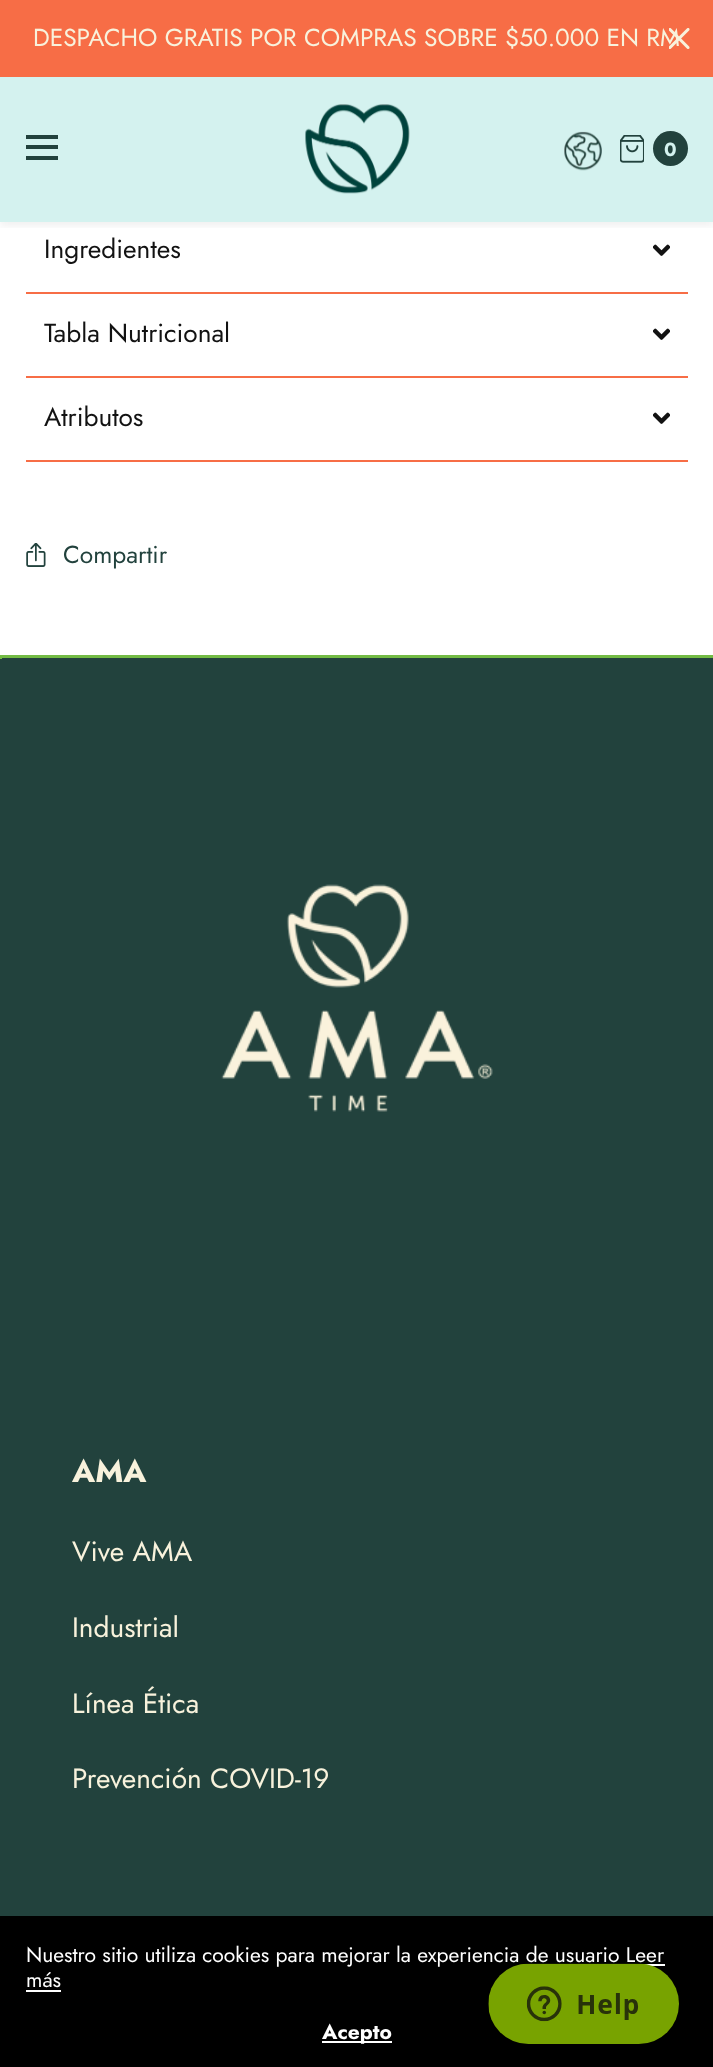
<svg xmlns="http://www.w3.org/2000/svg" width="713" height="2067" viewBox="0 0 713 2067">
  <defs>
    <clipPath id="clip1"><path d="M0 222h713v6H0z"/></clipPath>
  </defs>
  <rect width="100%" height="100%" fill="#fff"/>
  <path d="M0 77h713v145H0z" fill="#d4f2ef"/>
  <g clip-path="url(#clip1)">
    <path d="M0 81h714v145H0z" fill="#0000000f" filter="blur(4.5px)"/>
  </g>
  <path d="M0 0h713v77H0z" fill="#f76d46"/>
  <path d="M26 135h32v4H26z" fill="#22423d"/>
  <path d="M26 145h32v4H26z" fill="#22423d"/>
  <path d="M26 156h32v4H26z" fill="#22423d"/>
  <image x="305" y="104" width="105" height="90" href="img/2.png"/>
  <image x="564" y="131" width="38" height="40" href="img/3.png"/>
  <image x="620" y="135" width="24" height="28" href="img/4.png"/>
  <circle cx="670.5" cy="148.5" r="17.5" fill="#22423d"/>
  <image x="653" y="244" width="17" height="12" href="img/5.png"/>
  <path d="M26 292h662v2H26z" fill="#f76d46"/>
  <image x="653" y="328" width="17" height="12" href="img/5.png"/>
  <path d="M26 376h662v2H26z" fill="#f76d46"/>
  <path d="M26 460h662v2H26z" fill="#f76d46"/>
  <image x="653" y="412" width="17" height="12" href="img/5.png"/>
  <image x="26" y="543" width="20" height="24" href="img/6.png"/>
  <path d="M0 659h713v1257H0z" fill="#22423d"/>
  <path d="M0 655h713v4H0z" fill="#73bb44"/>
  <path d="M2 658h711v1H2z" fill="#22423d"/>
  <image x="221" y="884" width="272" height="228" href="img/7.png"/>
  <path d="M0 1916h713v151H0z" fill="#000"/>
  <path d="M644 1964h21v2H644z" fill="#fff"/>
  <path d="M26 1990h35v2H26z" fill="#fff"/>
  <path d="M322 2041h70v2H322z" fill="#fff"/>
  <text x="33" y="46" font-family="Jost" font-size="24.5" fill="#f8f2dc">DESPACHO GRATIS POR COMPRAS SOBRE $50.000 EN RM</text>
  <image x="669" y="28" width="21" height="21" href="img/1.png"/>
  <text x="664" y="156" font-family="Jost" font-size="19" font-weight="bold" fill="#d4f2ef">0</text>
  <g font-family="Jost" font-size="26.25" fill="#121212">
    <text x="44" y="258">Ingredientes</text>
    <text x="44" y="342">Tabla Nutricional</text>
    <text x="44" y="426">Atributos</text>
  </g>
  <text x="63" y="563" font-family="Jost" font-size="24.5" fill="#22423d">Compartir</text>
  <text x="72" y="1482" font-family="Jost" font-size="31.5" font-weight="bold" fill="#f8f2dc">AMA</text>
  <g font-family="Jost" font-size="28" fill="#f8f2dc">
    <text x="72" y="1561">Vive AMA</text>
    <text x="72" y="1637">Industrial</text>
    <text x="72" y="1713">Línea Ética</text>
    <text x="72" y="1788">Prevención COVID-19</text>
  </g>
  <g font-family="Jost" font-size="21" fill="#fff">
    <text x="26" y="1962">Nuestro sitio utiliza cookies para mejorar la experiencia de usuario Leer</text>
    <text x="26" y="1987">más</text>
  </g>
  <text x="322" y="2039" font-family="Jost" font-size="21" font-weight="bold" fill="#fff">Acepto</text>
  <image x="488" y="1963" width="191" height="81" href="img/8.png"/>
</svg>
